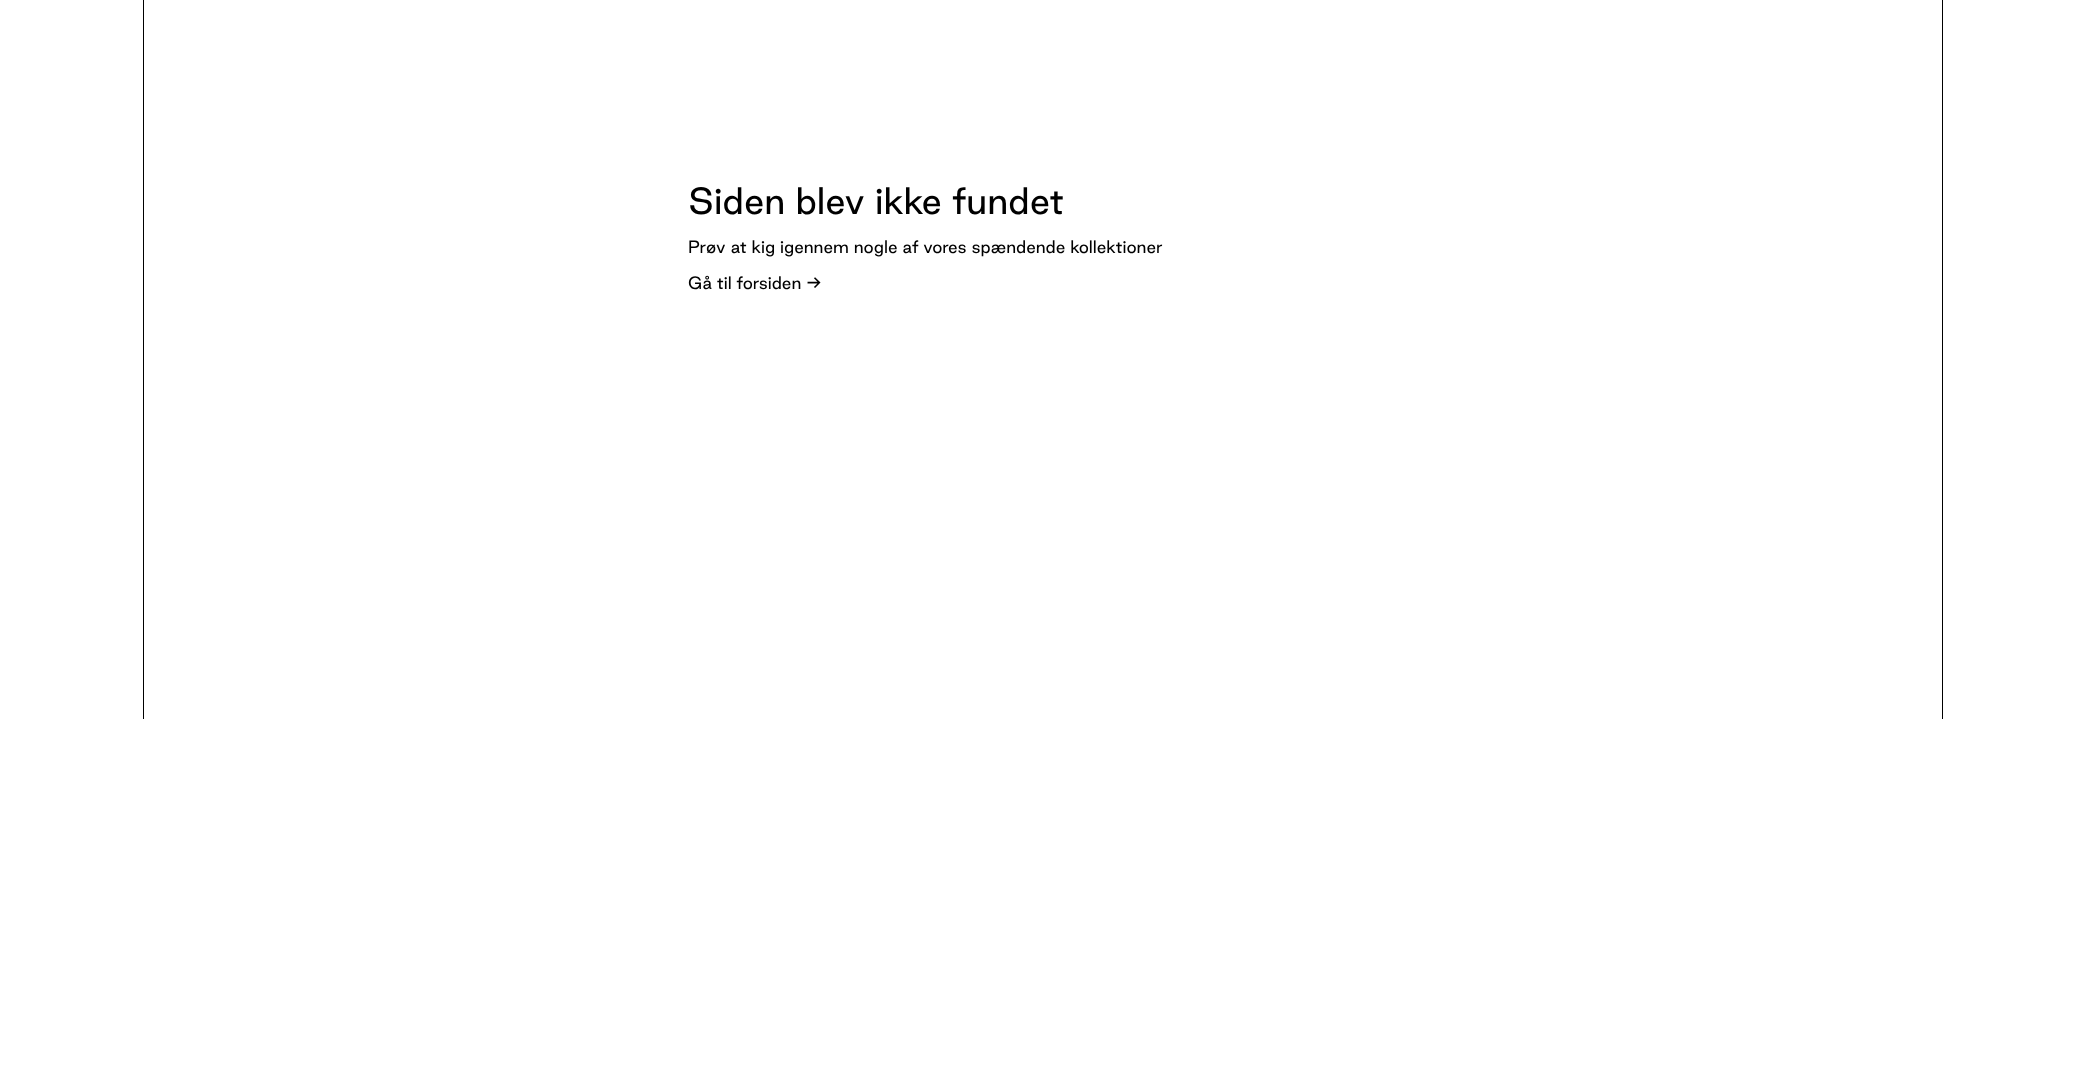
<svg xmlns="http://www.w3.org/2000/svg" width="2086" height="1078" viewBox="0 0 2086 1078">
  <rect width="100%" height="100%" fill="#fff"/>
  <path d="M1942 0h1v719H1942z" fill="#000"/>
  <path d="M143 0h1v719H143z" fill="#000"/>
  <text x="688" y="214" font-family="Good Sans" font-size="34" fill="#000">Siden blev ikke fundet</text>
  <g font-family="Good Sans" font-size="16" fill="#000">
    <text x="688" y="253">Prøv at kig igennem nogle af vores spændende kollektioner</text>
    <text x="688" y="289">Gå til forsiden →</text>
  </g>
</svg>
